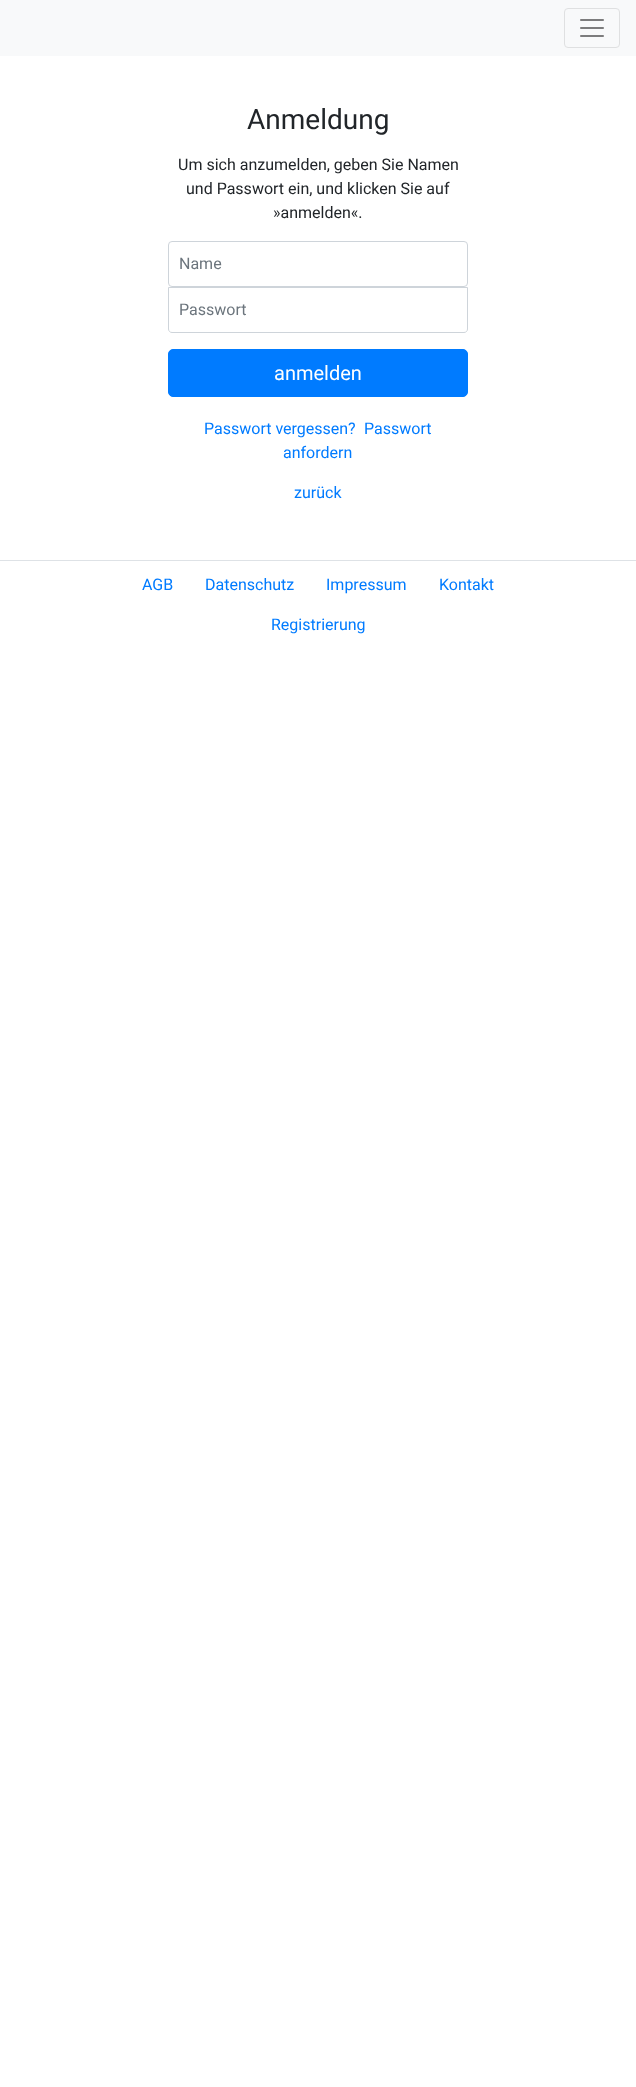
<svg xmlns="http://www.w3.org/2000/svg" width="636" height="2087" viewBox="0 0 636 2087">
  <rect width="100%" height="100%" fill="#fff"/>
  <path d="M0 0h636v56H0z" fill="#f8f9fa"/>
  <rect x="564.5" y="8.5" width="55" height="39" rx="3.5" fill="none" stroke="#dfe0e1"/>
  <image x="580" y="19" width="24" height="18" href="img/1.png"/>
  <rect x="168.5" y="241.5" width="299" height="45" rx="3.5" fill="none" stroke="#ced4da"/>
  <path d="M168.5 287.5H467.5V329C467.5 331 466 332.5 464 332.5H172C170 332.5 168.5 331 168.5 329Z" fill="none" stroke="#ced4da"/>
  <rect x="168.5" y="349.5" width="299" height="47" rx="4.5" fill="#007bff" stroke="#007bff"/>
  <path d="M0 560h636v1H0z" fill="#dee2e6"/>
  <text x="247" y="129" font-family="Roboto" font-size="28" fill="#212529">Anmeldung</text>
  <g font-family="Roboto" font-size="16" fill="#212529">
    <text x="178" y="170">Um sich anzumelden, geben Sie Namen</text>
    <text x="186" y="194">und Passwort ein, und klicken Sie auf</text>
    <text x="273" y="218">»anmelden«.</text>
  </g>
  <g font-family="Roboto" font-size="16" fill="#6c757d">
    <text x="179" y="269">Name</text>
    <text x="179" y="315">Passwort</text>
  </g>
  <text x="274" y="380" font-family="Roboto" font-size="20" fill="#fff">anmelden</text>
  <g font-family="Roboto" font-size="16" fill="#007bff">
    <text x="204" y="434">Passwort vergessen?</text>
    <text x="364" y="434">Passwort</text>
    <text x="283" y="458">anfordern</text>
    <text x="294" y="498">zurück</text>
    <text x="142" y="590">AGB</text>
    <text x="205" y="590">Datenschutz</text>
    <text x="326" y="590">Impressum</text>
    <text x="439" y="590">Kontakt</text>
    <text x="271" y="630">Registrierung</text>
  </g>
</svg>
